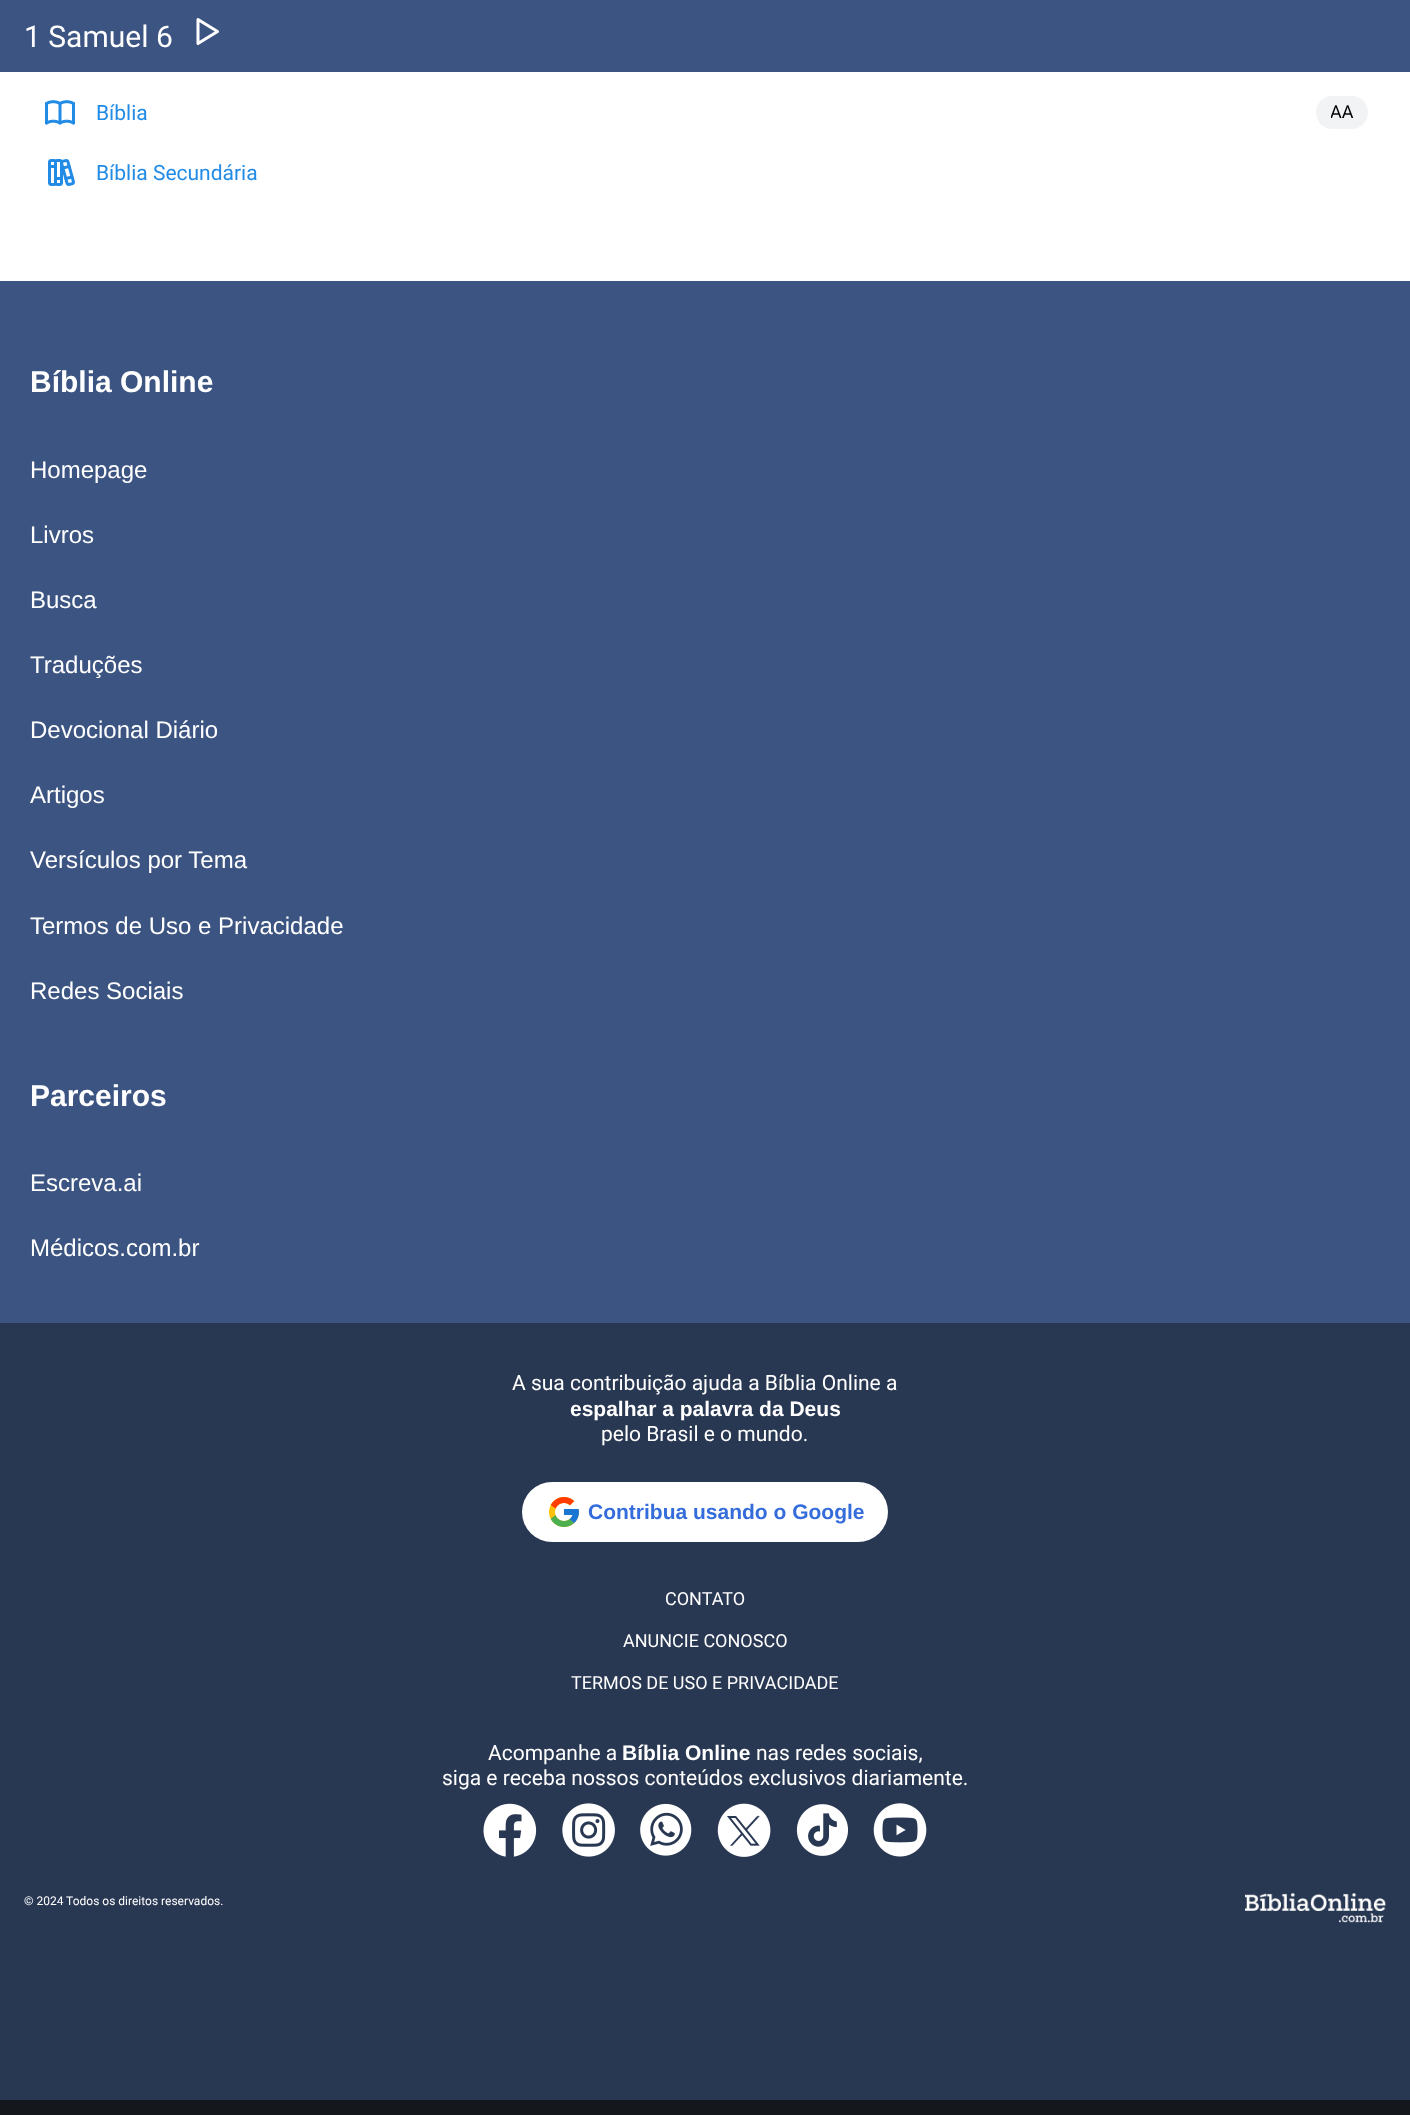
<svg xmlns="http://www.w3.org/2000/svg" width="1410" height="2115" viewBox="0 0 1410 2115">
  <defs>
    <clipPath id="clip1"><path d="M1331 96h22v33H1331z"/></clipPath>
  </defs>
  <rect width="100%" height="100%" fill="#fff"/>
  <path d="M0 0h1410v72H0z" fill="#3c5481"/>
  <path d="M198 19.5V43.5L217.5 31.5Z" fill="none" stroke="#fff" stroke-width="3" stroke-linecap="round" stroke-linejoin="round"/>
  <image x="45" y="100" width="30" height="25" href="img/1.png"/>
  <rect x="1316" y="96" width="52" height="33" rx="16.5" fill="#f1f3f5"/>
  <image x="48" y="159" width="27" height="27" href="img/2.png"/>
  <path d="M0 281h1410v1042H0z" fill="#3c5481"/>
  <path d="M0 1323h1410v777H0z" fill="#283752"/>
  <rect x="522" y="1482" width="366" height="60" rx="30" fill="#fff"/>
  <image x="549" y="1497" width="30" height="30" href="img/3.png"/>
  <image x="483" y="1803" width="54" height="54" href="img/4.png"/>
  <image x="562" y="1803" width="53" height="54" href="img/5.png"/>
  <image x="640" y="1803" width="52" height="53" href="img/6.png"/>
  <image x="717" y="1803" width="54" height="54" href="img/7.png"/>
  <image x="796" y="1804" width="52" height="52" href="img/8.png"/>
  <image x="873" y="1803" width="54" height="54" href="img/9.png"/>
  <image x="1245" y="1893" width="141" height="30" href="img/10.png"/>
  <path d="M0 2100h1410v15H0z" fill="#14181c"/>
  <text x="24" y="47" font-family="Roboto" font-size="30" fill="#fff">1 Samuel 6</text>
  <text x="96" y="120" font-family="Roboto" font-size="21" fill="#228be6">Bíblia</text>
  <g clip-path="url(#clip1)">
    <text x="1330" y="118" font-family="Roboto" font-size="18" fill="#000">AA</text>
  </g>
  <text x="96" y="180" font-family="Roboto" font-size="21" fill="#228be6">Bíblia Secundária</text>
  <text x="30" y="392" font-family="Liberation Sans" font-size="30" font-weight="bold" fill="#fff">Bíblia Online</text>
  <g font-family="Liberation Sans" font-size="24" fill="#fff">
    <text x="30" y="478">Homepage</text>
    <text x="30" y="543">Livros</text>
    <text x="30" y="608">Busca</text>
    <text x="30" y="673">Traduções</text>
    <text x="30" y="738">Devocional Diário</text>
    <text x="30" y="803">Artigos</text>
    <text x="30" y="868">Versículos por Tema</text>
    <text x="30" y="934">Termos de Uso e Privacidade</text>
    <text x="30" y="999">Redes Sociais</text>
  </g>
  <text x="30" y="1106" font-family="Liberation Sans" font-size="30" font-weight="bold" fill="#fff">Parceiros</text>
  <g font-family="Liberation Sans" font-size="24" fill="#fff">
    <text x="30" y="1191">Escreva.ai</text>
    <text x="30" y="1256">Médicos.com.br</text>
  </g>
  <text x="512" y="1390" font-family="Roboto" font-size="21" fill="#fff">A sua contribuição ajuda a Bíblia Online a</text>
  <text x="570" y="1416" font-family="Liberation Sans" font-size="21" font-weight="bold" fill="#fff">espalhar a palavra da Deus</text>
  <text x="601" y="1441" font-family="Roboto" font-size="21" fill="#fff">pelo Brasil e o mundo.</text>
  <text x="588" y="1519" font-family="Liberation Sans" font-size="21" font-weight="bold" fill="#346ddb">Contribua usando o Google</text>
  <g font-family="Roboto" font-size="18" fill="#fff">
    <text x="665" y="1605">CONTATO</text>
    <text x="623" y="1647">ANUNCIE CONOSCO</text>
    <text x="571" y="1689">TERMOS DE USO E PRIVACIDADE</text>
  </g>
  <text x="488" y="1760" font-family="Roboto" font-size="21" fill="#fff">Acompanhe a</text>
  <text x="622" y="1760" font-family="Liberation Sans" font-size="21" font-weight="bold" fill="#fff">Bíblia Online</text>
  <g font-family="Roboto" font-size="21" fill="#fff">
    <text x="756" y="1760">nas redes sociais,</text>
    <text x="442" y="1785">siga e receba nossos conteúdos exclusivos diariamente.</text>
  </g>
  <text x="24" y="1905" font-family="Roboto" font-size="12" fill="#fff">© 2024 Todos os direitos reservados.</text>
</svg>
